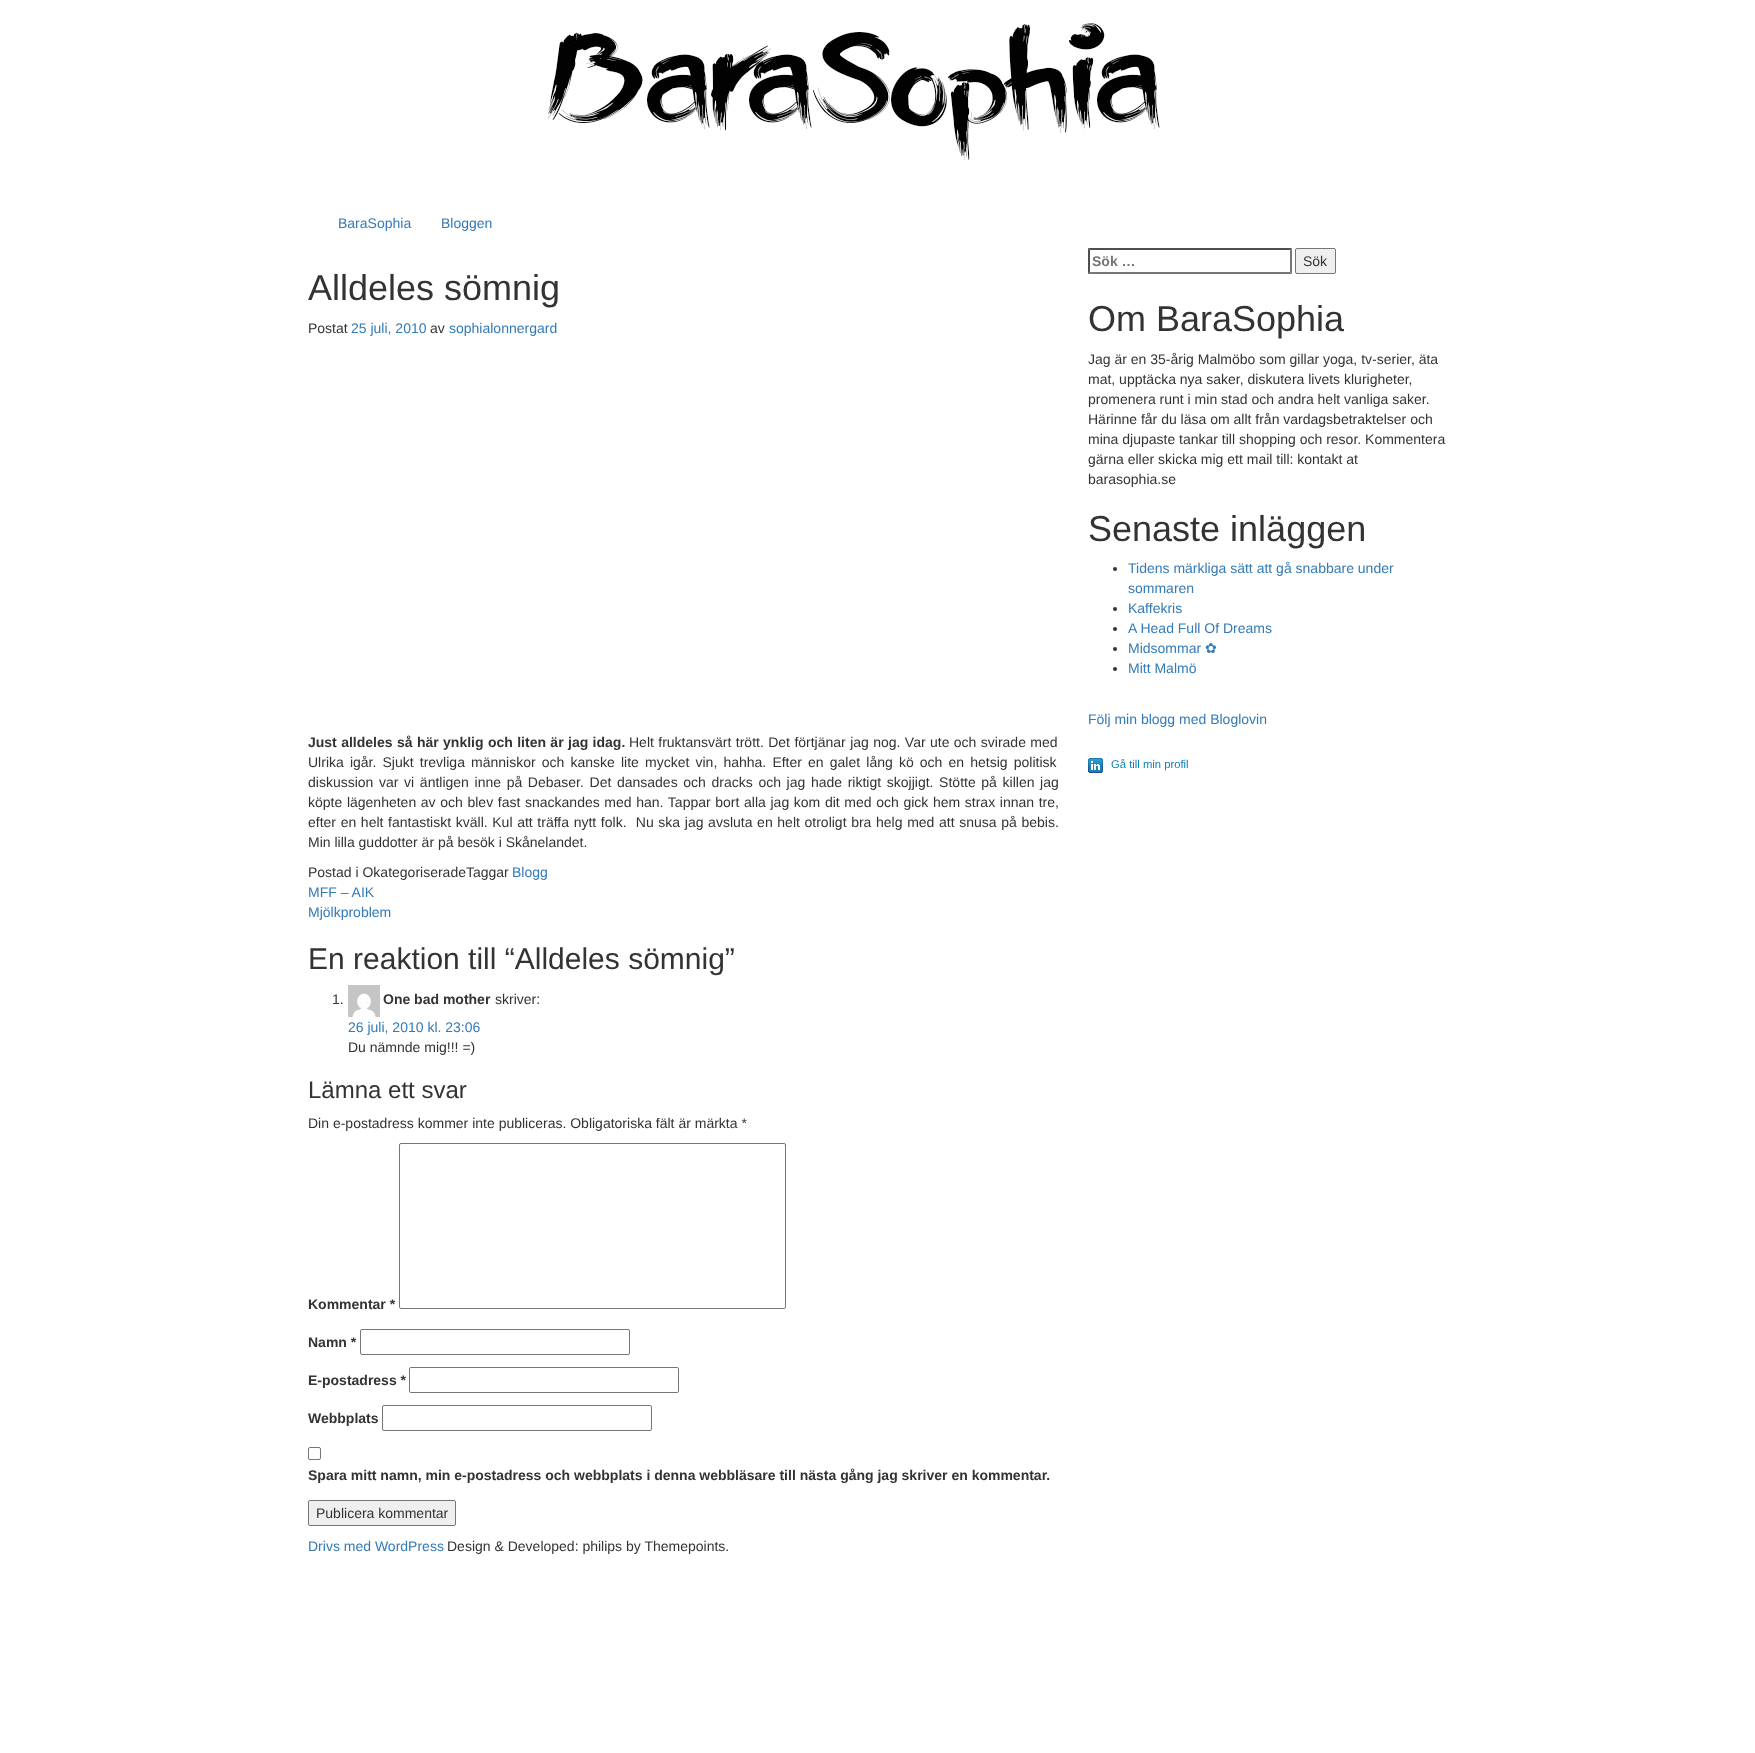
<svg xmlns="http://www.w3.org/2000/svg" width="1755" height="1753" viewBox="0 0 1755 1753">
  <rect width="100%" height="100%" fill="#fff"/>
  <image x="547" y="23" width="613" height="138" href="img/1.png"/>
  <image x="348" y="985" width="32" height="32" href="img/2.png"/>
  <rect x="399.5" y="1143.5" width="386" height="165" rx="1.5" fill="none" stroke="#767676"/>
  <rect x="360.5" y="1329.5" width="269" height="25" rx="1.5" fill="none" stroke="#767676"/>
  <rect x="409.5" y="1367.5" width="269" height="25" rx="1.5" fill="none" stroke="#767676"/>
  <rect x="382.5" y="1405.5" width="269" height="25" rx="1.5" fill="none" stroke="#767676"/>
  <rect x="308.5" y="1447.5" width="12" height="12" rx="1.5" fill="none" stroke="#767676"/>
  <rect x="308.5" y="1500.5" width="147" height="25" rx="1.5" fill="#efefef" stroke="#767676"/>
  <path d="M1088 248H1292L1290 250H1090Z" fill="#4f4f4f"/>
  <path d="M1292 248V274L1290 272V250Z" fill="#767676"/>
  <path d="M1292 274H1088L1090 272H1290Z" fill="#767676"/>
  <path d="M1088 274V248L1090 250V272Z" fill="#4f4f4f"/>
  <rect x="1295.5" y="248.5" width="40" height="25" rx="1.5" fill="#efefef" stroke="#767676"/>
  <circle cx="1115" cy="569" r="2" fill="#333"/>
  <circle cx="1115" cy="609" r="2" fill="#333"/>
  <circle cx="1115" cy="629" r="2" fill="#333"/>
  <circle cx="1115" cy="649" r="2" fill="#333"/>
  <circle cx="1115" cy="669" r="2" fill="#333"/>
  <image x="1088" y="758" width="15" height="15" href="img/3.png"/>
  <g font-family="Liberation Sans" font-size="14" fill="#337ab7">
    <text x="338" y="228">BaraSophia</text>
    <text x="441" y="228">Bloggen</text>
  </g>
  <text x="308" y="300" font-family="Liberation Sans" font-size="36" fill="#333">Alldeles sömnig</text>
  <text x="308" y="333" font-family="Liberation Sans" font-size="14" fill="#333">Postat</text>
  <text x="351" y="333" font-family="Liberation Sans" font-size="14" fill="#337ab7">25 juli, 2010</text>
  <text x="430" y="333" font-family="Liberation Sans" font-size="14" fill="#333">av</text>
  <text x="449" y="333" font-family="Liberation Sans" font-size="14" fill="#337ab7">sophialonnergard</text>
  <text x="308" y="747" word-spacing="0.5" font-family="Liberation Sans" font-size="14" font-weight="bold" fill="#333">Just alldeles så här ynklig och liten är jag idag.</text>
  <g font-family="Liberation Sans" font-size="14" fill="#333">
    <text x="629" y="747" word-spacing="0.5">Helt fruktansvärt trött. Det förtjänar jag nog. Var ute och svirade med</text>
    <text x="308" y="767" word-spacing="2.25">Ulrika igår. Sjukt trevliga människor och kanske lite mycket vin, hahha. Efter en galet lång kö och en hetsig politisk</text>
    <text x="308" y="787" word-spacing="1.75">diskussion var vi äntligen inne på Debaser. Det dansades och dracks och jag hade riktigt skojjigt. Stötte på killen jag</text>
    <text x="308" y="807" word-spacing="0.75">köpte lägenheten av och blev fast snackandes med han. Tappar bort alla jag kom dit med och gick hem strax innan tre,</text>
    <text x="308" y="827" word-spacing="0.75" xml:space="preserve">efter en helt fantastiskt kväll. Kul att träffa nytt folk.  Nu ska jag avsluta en helt otroligt bra helg med att snusa på bebis.</text>
    <text x="308" y="847">Min lilla guddotter är på besök i Skånelandet.</text>
    <text x="308" y="877">Postad i OkategoriseradeTaggar</text>
  </g>
  <g font-family="Liberation Sans" font-size="14" fill="#337ab7">
    <text x="512" y="877">Blogg</text>
    <text x="308" y="897">MFF – AIK</text>
    <text x="308" y="917">Mjölkproblem</text>
  </g>
  <text x="308" y="969" font-family="Liberation Sans" font-size="30" fill="#333">En reaktion till “Alldeles sömnig”</text>
  <text x="332" y="1004" font-family="Liberation Sans" font-size="14" fill="#333">1.</text>
  <text x="383" y="1004" font-family="Liberation Sans" font-size="14" font-weight="bold" fill="#333">One bad mother</text>
  <text x="495" y="1004" font-family="Liberation Sans" font-size="14" fill="#333">skriver:</text>
  <text x="348" y="1032" font-family="Liberation Sans" font-size="14" fill="#337ab7">26 juli, 2010 kl. 23:06</text>
  <text x="348" y="1052" font-family="Liberation Sans" font-size="14" fill="#333">Du nämnde mig!!! =)</text>
  <text x="308" y="1098" font-family="Liberation Sans" font-size="24" fill="#333">Lämna ett svar</text>
  <text x="308" y="1128" font-family="Liberation Sans" font-size="14" fill="#333">Din e-postadress kommer inte publiceras. Obligatoriska fält är märkta *</text>
  <g font-family="Liberation Sans" font-size="14" font-weight="bold" fill="#333">
    <text x="308" y="1309">Kommentar *</text>
    <text x="308" y="1347">Namn *</text>
    <text x="308" y="1385">E-postadress *</text>
    <text x="308" y="1423">Webbplats</text>
    <text x="308" y="1480">Spara mitt namn, min e-postadress och webbplats i denna webbläsare till nästa gång jag skriver en kommentar.</text>
  </g>
  <text x="316" y="1518" font-family="Liberation Sans" font-size="14" fill="#333">Publicera kommentar</text>
  <text x="1092" y="266" font-family="Liberation Sans" font-size="14" font-weight="bold" fill="#757575">Sök …</text>
  <text x="1303" y="266" font-family="Liberation Sans" font-size="14" fill="#333">Sök</text>
  <text x="1088" y="331" font-family="Liberation Sans" font-size="36" fill="#333">Om BaraSophia</text>
  <g font-family="Liberation Sans" font-size="14" fill="#333">
    <text x="1088" y="364">Jag är en 35-årig Malmöbo som gillar yoga, tv-serier, äta</text>
    <text x="1088" y="384">mat, upptäcka nya saker, diskutera livets klurigheter,</text>
    <text x="1088" y="404">promenera runt i min stad och andra helt vanliga saker.</text>
    <text x="1088" y="424">Härinne får du läsa om allt från vardagsbetraktelser och</text>
    <text x="1088" y="444">mina djupaste tankar till shopping och resor. Kommentera</text>
    <text x="1088" y="464">gärna eller skicka mig ett mail till: kontakt at</text>
    <text x="1088" y="484">barasophia.se</text>
  </g>
  <text x="1088" y="541" font-family="Liberation Sans" font-size="36" fill="#333">Senaste inläggen</text>
  <g font-family="Liberation Sans" font-size="14" fill="#337ab7">
    <text x="1128" y="573">Tidens märkliga sätt att gå snabbare under</text>
    <text x="1128" y="593">sommaren</text>
    <text x="1128" y="613">Kaffekris</text>
    <text x="1128" y="633">A Head Full Of Dreams</text>
    <text x="1128" y="653">Midsommar</text>
  </g>
  <text x="1205" y="653" font-family="DejaVu Sans" font-size="14" fill="#337ab7">✿</text>
  <g font-family="Liberation Sans" font-size="14" fill="#337ab7">
    <text x="1128" y="673">Mitt Malmö</text>
    <text x="1088" y="724">Följ min blogg med Bloglovin</text>
  </g>
  <text x="1111" y="768" font-family="Liberation Sans" font-size="11.25" fill="#0783b6">Gå till min profil</text>
  <text x="308" y="1551" font-family="Liberation Sans" font-size="14" fill="#337ab7">Drivs med WordPress</text>
  <text x="447" y="1551" font-family="Liberation Sans" font-size="14" fill="#333">Design &amp; Developed: philips by Themepoints.</text>
</svg>
